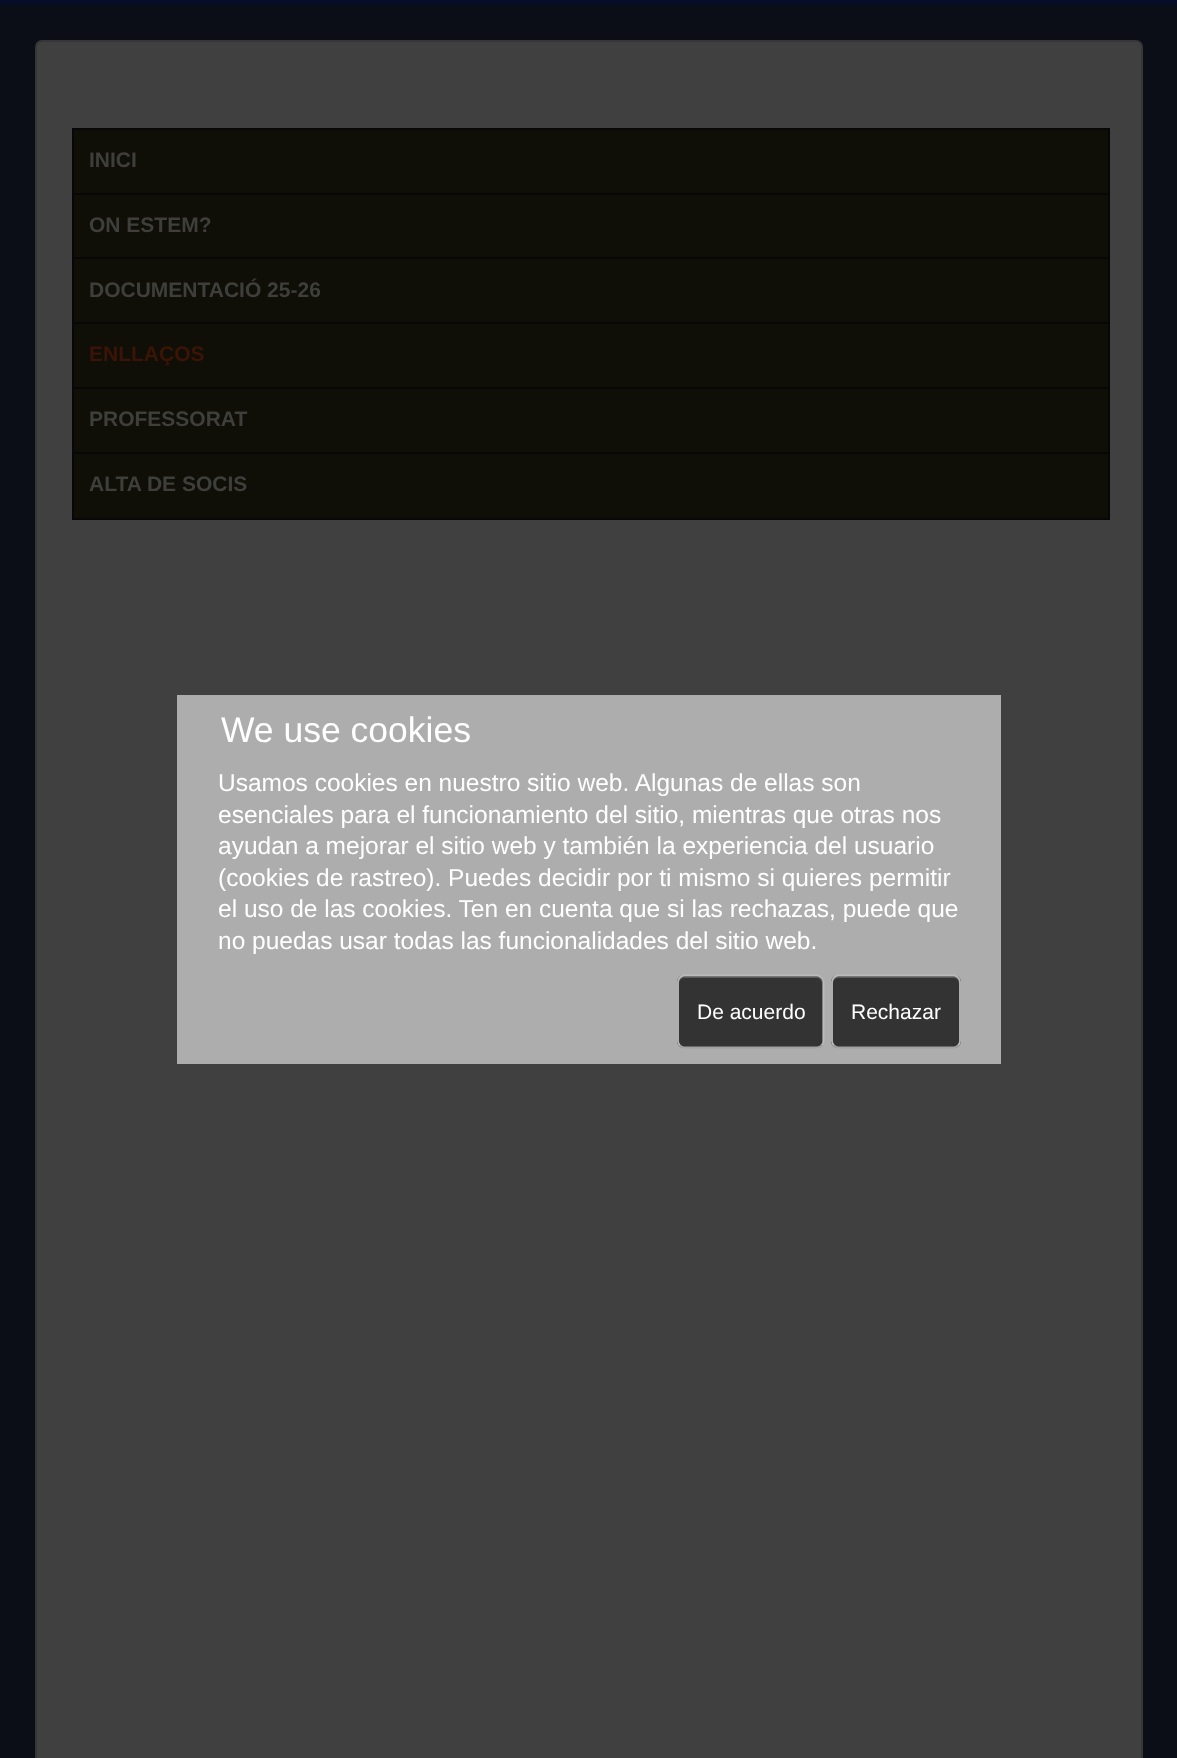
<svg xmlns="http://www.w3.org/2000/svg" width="1177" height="1758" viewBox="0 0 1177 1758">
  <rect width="100%" height="100%" fill="#0b0e17"/>
  <path d="M0 0h1177v5H0z" fill="#060e27"/>
  <rect x="35" y="40" width="1108" height="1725" rx="7" fill="#404040"/>
  <rect x="36" y="41" width="1106" height="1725" rx="6" fill="none" stroke="#00000026" stroke-width="2"/>
  <path d="M73 129h1036v390H73z" fill="#0f0f08" stroke="#070707" stroke-width="2"/>
  <path d="M74 193h1034v2H74z" fill="#070707"/>
  <path d="M74 257h1034v2H74z" fill="#070707"/>
  <path d="M74 322h1034v2H74z" fill="#070707"/>
  <path d="M74 387h1034v2H74z" fill="#070707"/>
  <path d="M74 452h1034v2H74z" fill="#070707"/>
  <path d="M177 695h824v369H177z" fill="#adadad"/>
  <rect x="677" y="975" width="147" height="73" rx="7" fill="#333"/>
  <path d="M684 978H817C820 978 822 981 822 984V1043L821 1046C822 1045 823 1043 823 1042V982C823 979 821 977 818 977H684C681 977 679 979 679 982V984C679 981 681 978 684 978Z" fill="#5c5c5c"/>
  <path d="M821.5 1045.5C820.5 1046.5 819 1047.5 817 1047.5H684C682.5 1047.5 681 1046.5 680 1045.5" fill="none" stroke="#a2a2a2" stroke-width="1.8"/>
  <path d="M680 1045.5C679 1044.5 678 1043 678 1041V982C678 980 679 978.5 680 977.5C681 976.5 682.5 975.5 684 975.5H817C819 975.5 820.5 976.5 821.5 977.5C822.5 978.5 823.5 980 823.5 982V1041C823.5 1043 822.5 1044.5 821.5 1045.5" fill="none" stroke="#bbb" stroke-width="1.8"/>
  <rect x="831" y="975" width="130" height="73" rx="7" fill="#333"/>
  <path d="M838 978H954C957 978 959 981 959 984V982C959 979 957 977 954 977H838C835 977 833 979 833 982V984C833 981 835 978 838 978Z" fill="#5c5c5c"/>
  <path d="M958 1045.5C957 1046.5 955.5 1047.5 954 1047.5H838C836.5 1047.5 835 1046.5 834 1045.5" fill="none" stroke="#a2a2a2" stroke-width="1.8"/>
  <path d="M834 1045.5C833 1044.5 832 1043 832 1041V982C832 980 833 978.5 834 977.5C835 976.5 836.5 975.5 838 975.5H954C955.5 975.5 957 976.5 958 977.5C959 978.5 960 980 960 982V1041C960 1043 959 1044.5 958 1045.5" fill="none" stroke="#bbb" stroke-width="1.8"/>
  <g font-family="Liberation Sans" font-size="21" font-weight="bold" fill="#3e3f3b">
    <text x="89" y="167">INICI</text>
    <text x="89" y="232">ON ESTEM?</text>
    <text x="89" y="297">DOCUMENTACIÓ 25-26</text>
  </g>
  <text x="89" y="361" font-family="Liberation Sans" font-size="21" font-weight="bold" fill="#3c1406">ENLLAÇOS</text>
  <g font-family="Liberation Sans" font-size="21" font-weight="bold" fill="#3e3f3b">
    <text x="89" y="426">PROFESSORAT</text>
    <text x="89" y="491">ALTA DE SOCIS</text>
  </g>
  <text x="221" y="742" font-family="Liberation Sans" font-size="35.5" fill="#fff">We use cookies</text>
  <g font-family="Liberation Sans" font-size="24.5" fill="#fff">
    <text x="218" y="791">Usamos cookies en nuestro sitio web. Algunas de ellas son</text>
    <text x="218" y="823">esenciales para el funcionamiento del sitio, mientras que otras nos</text>
    <text x="218" y="854">ayudan a mejorar el sitio web y también la experiencia del usuario</text>
    <text x="218" y="886">(cookies de rastreo). Puedes decidir por ti mismo si quieres permitir</text>
    <text x="218" y="917">el uso de las cookies. Ten en cuenta que si las rechazas, puede que</text>
    <text x="218" y="949">no puedas usar todas las funcionalidades del sitio web.</text>
  </g>
  <g font-family="Liberation Sans" font-size="21" fill="#fff">
    <text x="697" y="1019">De acuerdo</text>
    <text x="851" y="1019">Rechazar</text>
  </g>
</svg>
